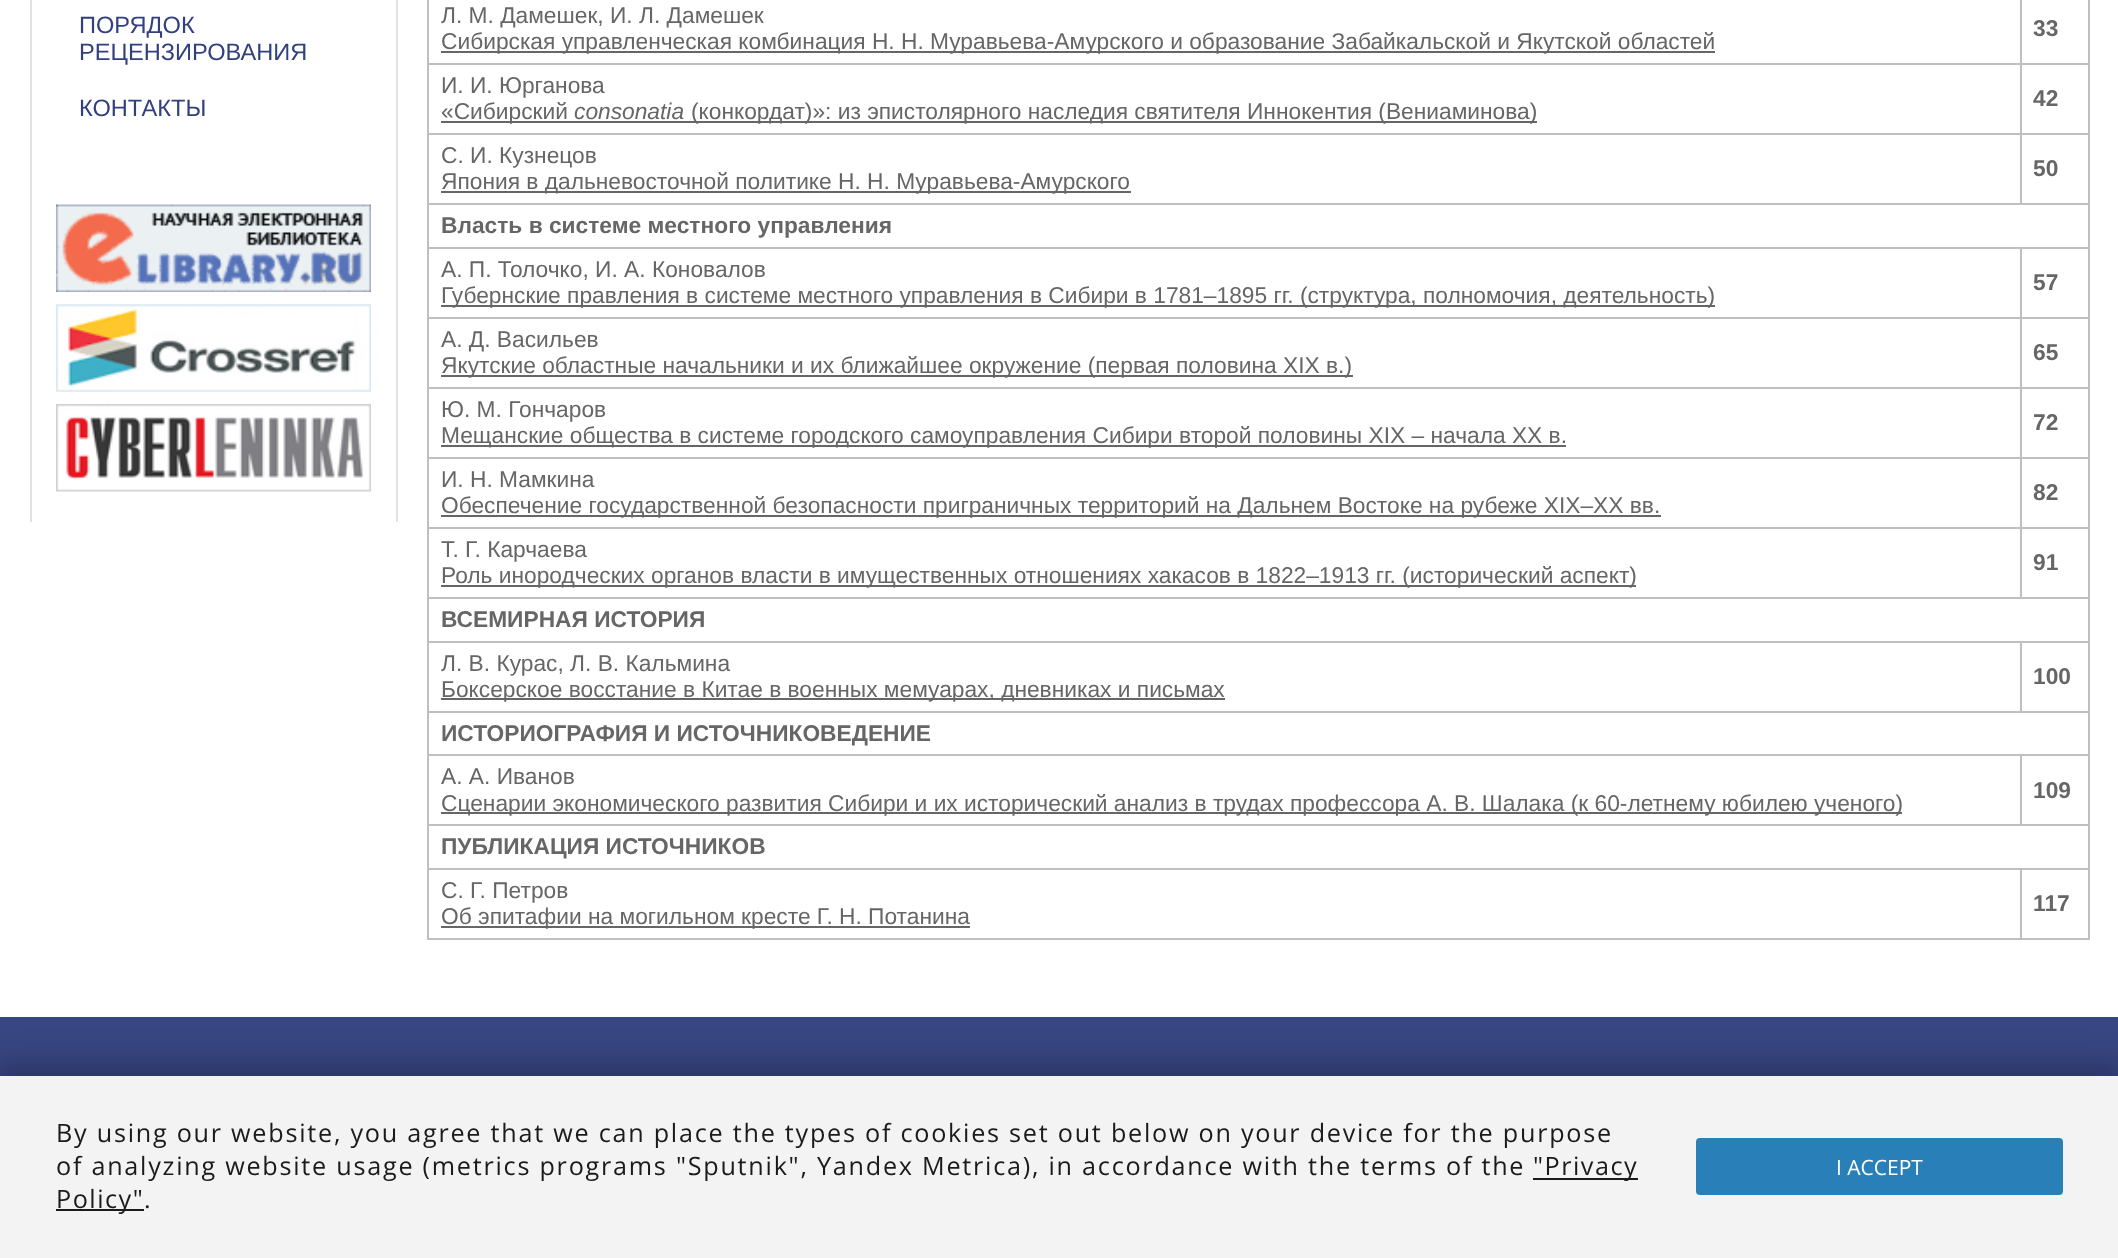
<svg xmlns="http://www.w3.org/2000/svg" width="2118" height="1258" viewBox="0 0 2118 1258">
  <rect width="100%" height="100%" fill="#fff"/>
  <path d="M396 0h2v522H396z" fill="#e2e2e2"/>
  <path d="M30 0h2v522H30z" fill="#e2e2e2"/>
  <image x="56" y="204" width="315" height="88" href="img/1.png"/>
  <image x="56" y="304" width="315" height="88" href="img/2.png"/>
  <image x="56" y="404" width="315" height="88" href="img/3.png"/>
  <path d="M2088 0h2v940H2088z" fill="#bfbfbf"/>
  <path d="M427 938h1663v2H427z" fill="#bfbfbf"/>
  <path d="M427 0h2v940H427z" fill="#bfbfbf"/>
  <path d="M441 51h1274v2H441z" fill="#666"/>
  <path d="M2020 63h70v2H2020z" fill="#bfbfbf"/>
  <path d="M2020 133h70v2H2020z" fill="#bfbfbf"/>
  <path d="M427 203h1663v2H427z" fill="#bfbfbf"/>
  <path d="M2020 133h2v72H2020z" fill="#bfbfbf"/>
  <path d="M427 133h1594v2H427z" fill="#bfbfbf"/>
  <path d="M2020 63h2v72H2020z" fill="#bfbfbf"/>
  <path d="M427 63h1594v2H427z" fill="#bfbfbf"/>
  <path d="M2020 0h2v65H2020z" fill="#bfbfbf"/>
  <path d="M441 121h1096v2H441z" fill="#666"/>
  <path d="M441 191h690v2H441z" fill="#666"/>
  <path d="M2020 247h70v2H2020z" fill="#bfbfbf"/>
  <path d="M2020 317h70v2H2020z" fill="#bfbfbf"/>
  <path d="M2020 387h70v2H2020z" fill="#bfbfbf"/>
  <path d="M2020 457h70v2H2020z" fill="#bfbfbf"/>
  <path d="M2020 527h70v2H2020z" fill="#bfbfbf"/>
  <path d="M427 597h1663v2H427z" fill="#bfbfbf"/>
  <path d="M2020 527h2v72H2020z" fill="#bfbfbf"/>
  <path d="M427 527h1594v2H427z" fill="#bfbfbf"/>
  <path d="M2020 457h2v72H2020z" fill="#bfbfbf"/>
  <path d="M427 457h1594v2H427z" fill="#bfbfbf"/>
  <path d="M2020 387h2v72H2020z" fill="#bfbfbf"/>
  <path d="M427 387h1594v2H427z" fill="#bfbfbf"/>
  <path d="M2020 317h2v72H2020z" fill="#bfbfbf"/>
  <path d="M427 317h1594v2H427z" fill="#bfbfbf"/>
  <path d="M2020 247h2v72H2020z" fill="#bfbfbf"/>
  <path d="M427 247h1594v2H427z" fill="#bfbfbf"/>
  <path d="M441 305h1274v2H441z" fill="#666"/>
  <path d="M441 375h912v2H441z" fill="#666"/>
  <path d="M441 445h1125v2H441z" fill="#666"/>
  <path d="M441 515h1220v2H441z" fill="#666"/>
  <path d="M441 585h1195v2H441z" fill="#666"/>
  <path d="M2020 641h70v2H2020z" fill="#bfbfbf"/>
  <path d="M427 711h1663v2H427z" fill="#bfbfbf"/>
  <path d="M2020 641h2v71H2020z" fill="#bfbfbf"/>
  <path d="M427 641h1594v2H427z" fill="#bfbfbf"/>
  <path d="M441 698h784v2H441z" fill="#666"/>
  <path d="M2020 754h70v2H2020z" fill="#bfbfbf"/>
  <path d="M427 824h1663v2H427z" fill="#bfbfbf"/>
  <path d="M2020 754h2v72H2020z" fill="#bfbfbf"/>
  <path d="M427 754h1594v2H427z" fill="#bfbfbf"/>
  <path d="M441 812h1461v2H441z" fill="#666"/>
  <path d="M2020 868h70v2H2020z" fill="#bfbfbf"/>
  <path d="M2020 868h2v72H2020z" fill="#bfbfbf"/>
  <path d="M427 868h1594v2H427z" fill="#bfbfbf"/>
  <path d="M441 926h529v2H441z" fill="#666"/>
  <path d="M0 1017h2118v59H0z" fill="#384683"/>
  <path d="M-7 1064h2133v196H-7z" fill="#00000040" filter="blur(16px)"/>
  <path d="M0 1076h2118v182H0z" fill="#f3f3f3"/>
  <path d="M1533 1178h105v2H1533z" fill="#1b1b1b"/>
  <path d="M56 1209h88v2H56z" fill="#1b1b1b"/>
  <rect x="1696" y="1138" width="367" height="57" rx="4" fill="#2980b9"/>
  <g font-family="Liberation Sans" font-size="23.6" fill="#324080">
    <text x="79" y="33">ПОРЯДОК</text>
    <text x="79" y="60">РЕЦЕНЗИРОВАНИЯ</text>
    <text x="79" y="116">КОНТАКТЫ</text>
  </g>
  <g font-family="Liberation Sans" font-size="22.75" fill="#666">
    <text x="441" y="23">Л. М. Дамешек, И. Л. Дамешек</text>
    <text x="441" y="49">Сибирская управленческая комбинация Н. Н. Муравьева-Амурского и образование Забайкальской и Якутской областей</text>
  </g>
  <text x="2033" y="36" font-family="Liberation Sans" font-size="22.75" font-weight="bold" fill="#666">33</text>
  <g font-family="Liberation Sans" font-size="22.75" fill="#666">
    <text x="441" y="93">И. И. Юрганова</text>
    <text x="441" y="119">«Сибирский</text>
  </g>
  <text x="574" y="119" font-family="Liberation Sans" font-size="22.75" font-style="italic" fill="#666">сonsonatia</text>
  <text x="691" y="119" font-family="Liberation Sans" font-size="22.75" fill="#666">(конкордат)»: из эпистолярного наследия святителя Иннокентия (Вениаминова)</text>
  <text x="2033" y="106" font-family="Liberation Sans" font-size="22.75" font-weight="bold" fill="#666">42</text>
  <g font-family="Liberation Sans" font-size="22.75" fill="#666">
    <text x="441" y="163">С. И. Кузнецов</text>
    <text x="441" y="189">Япония в дальневосточной политике Н. Н. Муравьева-Амурского</text>
  </g>
  <g font-family="Liberation Sans" font-size="22.75" font-weight="bold" fill="#666">
    <text x="2033" y="176">50</text>
    <text x="441" y="233">Власть в системе местного управления</text>
  </g>
  <g font-family="Liberation Sans" font-size="22.75" fill="#666">
    <text x="441" y="277">А. П. Толочко, И. А. Коновалов</text>
    <text x="441" y="303">Губернские правления в системе местного управления в Сибири в 1781–1895 гг. (структура, полномочия, деятельность)</text>
  </g>
  <text x="2033" y="290" font-family="Liberation Sans" font-size="22.75" font-weight="bold" fill="#666">57</text>
  <g font-family="Liberation Sans" font-size="22.75" fill="#666">
    <text x="441" y="347">А. Д. Васильев</text>
    <text x="441" y="373">Якутские областные начальники и их ближайшее окружение (первая половина XIX в.)</text>
  </g>
  <text x="2033" y="360" font-family="Liberation Sans" font-size="22.75" font-weight="bold" fill="#666">65</text>
  <g font-family="Liberation Sans" font-size="22.75" fill="#666">
    <text x="441" y="417">Ю. М. Гончаров</text>
    <text x="441" y="443">Мещанские общества в системе городского самоуправления Сибири второй половины XIX – начала XX в.</text>
  </g>
  <text x="2033" y="430" font-family="Liberation Sans" font-size="22.75" font-weight="bold" fill="#666">72</text>
  <g font-family="Liberation Sans" font-size="22.75" fill="#666">
    <text x="441" y="487">И. Н. Мамкина</text>
    <text x="441" y="513">Обеспечение государственной безопасности приграничных территорий на Дальнем Востоке на рубеже XIX–ХХ вв.</text>
  </g>
  <text x="2033" y="500" font-family="Liberation Sans" font-size="22.75" font-weight="bold" fill="#666">82</text>
  <g font-family="Liberation Sans" font-size="22.75" fill="#666">
    <text x="441" y="557">Т. Г. Карчаева</text>
    <text x="441" y="583">Роль инородческих органов власти в имущественных отношениях хакасов в 1822–1913 гг. (исторический аспект)</text>
  </g>
  <g font-family="Liberation Sans" font-size="22.75" font-weight="bold" fill="#666">
    <text x="2033" y="570">91</text>
    <text x="441" y="627">ВСЕМИРНАЯ ИСТОРИЯ</text>
  </g>
  <g font-family="Liberation Sans" font-size="22.75" fill="#666">
    <text x="441" y="671">Л. В. Курас, Л. В. Кальмина</text>
    <text x="441" y="697">Боксерское восстание в Китае в военных мемуарах, дневниках и письмах</text>
  </g>
  <g font-family="Liberation Sans" font-size="22.75" font-weight="bold" fill="#666">
    <text x="2033" y="684">100</text>
    <text x="441" y="741">ИСТОРИОГРАФИЯ И ИСТОЧНИКОВЕДЕНИЕ</text>
  </g>
  <g font-family="Liberation Sans" font-size="22.75" fill="#666">
    <text x="441" y="784">А. А. Иванов</text>
    <text x="441" y="811">Сценарии экономического развития Сибири и их исторический анализ в трудах профессора А. В. Шалака (к 60-летнему юбилею ученого)</text>
  </g>
  <g font-family="Liberation Sans" font-size="22.75" font-weight="bold" fill="#666">
    <text x="2033" y="798">109</text>
    <text x="441" y="854">ПУБЛИКАЦИЯ ИСТОЧНИКОВ</text>
  </g>
  <g font-family="Liberation Sans" font-size="22.75" fill="#666">
    <text x="441" y="898">С. Г. Петров</text>
    <text x="441" y="924">Об эпитафии на могильном кресте Г. Н. Потанина</text>
  </g>
  <text x="2033" y="911" font-family="Liberation Sans" font-size="22.75" font-weight="bold" fill="#666">117</text>
  <g font-family="Open Sans" font-size="25.2" letter-spacing="1.75" fill="#1b1b1b">
    <text x="56" y="1142">By using our website, you agree that we can place the types of cookies set out below on your device for the purpose</text>
    <text x="56" y="1175">of analyzing website usage (metrics programs "Sputnik", Yandex Metrica), in accordance with the terms of the</text>
  </g>
  <g font-family="Open Sans" font-size="25.2" letter-spacing="1.5" fill="#1b1b1b">
    <text x="1533" y="1175">"Privacy</text>
    <text x="56" y="1208">Policy"</text>
  </g>
  <text x="144" y="1208" font-family="Open Sans" font-size="25.2" letter-spacing="1.75" fill="#1b1b1b">.</text>
  <text x="1836" y="1175" font-family="Open Sans" font-size="21" fill="#fff">I ACCEPT</text>
</svg>
